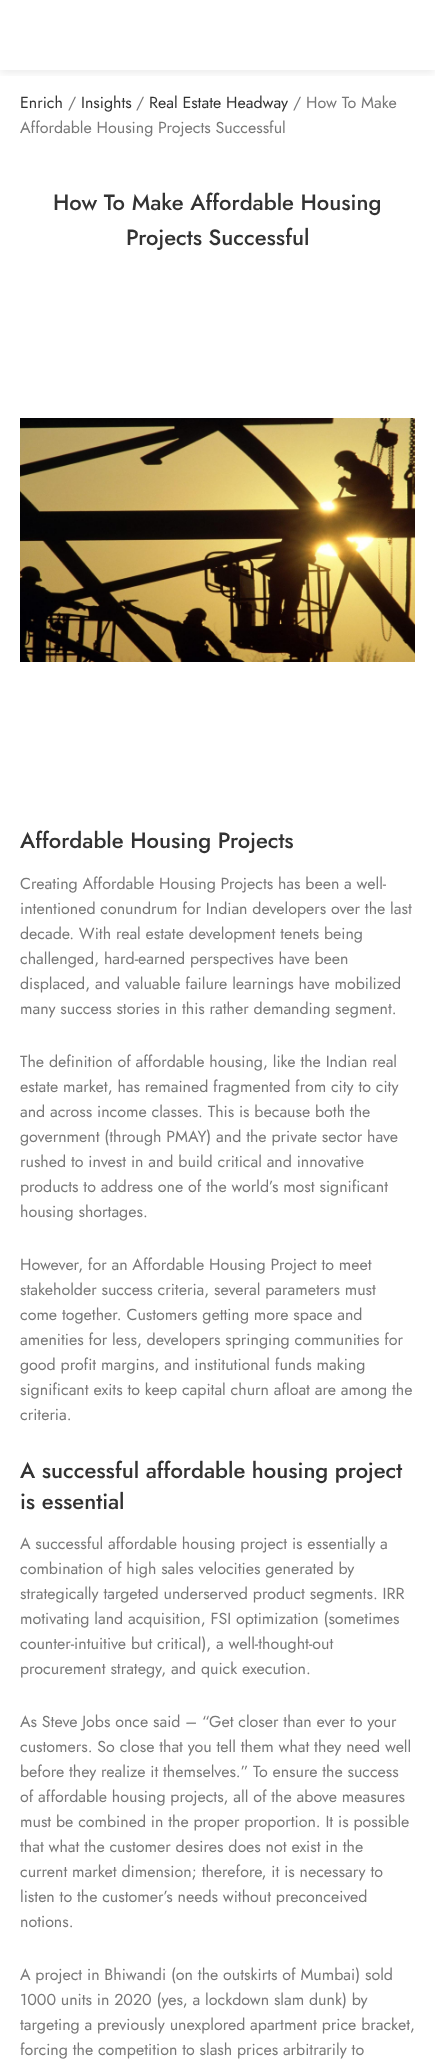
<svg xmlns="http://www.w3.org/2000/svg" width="435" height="2065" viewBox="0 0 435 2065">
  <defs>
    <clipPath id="clip1"><path d="M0 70h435v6H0z"/></clipPath>
  </defs>
  <rect width="100%" height="100%" fill="#fff"/>
  <g clip-path="url(#clip1)">
    <path d="M0 3h435v70H0z" fill="#00000014" filter="blur(4px)"/>
  </g>
  <image x="20" y="418" width="395" height="244" href="img/1.png"/>
  <text x="20" y="108" font-family="Jost" font-size="16" fill="#333">Enrich</text>
  <text x="68" y="108" font-family="Jost" font-size="16" fill="#787878">/</text>
  <text x="81" y="108" font-family="Jost" font-size="16" fill="#333">Insights</text>
  <text x="136" y="108" font-family="Jost" font-size="16" fill="#787878">/</text>
  <text x="149" y="108" font-family="Jost" font-size="16" fill="#333">Real Estate Headway</text>
  <g font-family="Jost" font-size="16" fill="#787878">
    <text x="293" y="108">/ How To Make</text>
    <text x="20" y="133">Affordable Housing Projects Successful</text>
  </g>
  <g font-family="Jost" font-size="22" font-weight="500" fill="#333">
    <text x="53" y="210">How To Make Affordable Housing</text>
    <text x="126" y="245">Projects Successful</text>
    <text x="20" y="848">Affordable Housing Projects</text>
  </g>
  <g font-family="Jost" font-size="16" fill="#787878">
    <text x="20" y="889">Creating Affordable Housing Projects has been a well-</text>
    <text x="20" y="914">intentioned conundrum for Indian developers over the last</text>
    <text x="20" y="939">decade. With real estate development tenets being</text>
    <text x="20" y="964">challenged, hard-earned perspectives have been</text>
    <text x="20" y="989">displaced, and valuable failure learnings have mobilized</text>
    <text x="20" y="1014">many success stories in this rather demanding segment.</text>
    <text x="20" y="1067">The definition of affordable housing, like the Indian real</text>
    <text x="20" y="1092">estate market, has remained fragmented from city to city</text>
    <text x="20" y="1117">and across income classes. This is because both the</text>
    <text x="20" y="1142">government (through PMAY) and the private sector have</text>
    <text x="20" y="1167">rushed to invest in and build critical and innovative</text>
    <text x="20" y="1192">products to address one of the world’s most significant</text>
    <text x="20" y="1217">housing shortages.</text>
    <text x="20" y="1270">However, for an Affordable Housing Project to meet</text>
    <text x="20" y="1295">stakeholder success criteria, several parameters must</text>
    <text x="20" y="1320">come together. Customers getting more space and</text>
    <text x="20" y="1345">amenities for less, developers springing communities for</text>
    <text x="20" y="1370">good profit margins, and institutional funds making</text>
    <text x="20" y="1395">significant exits to keep capital churn afloat are among the</text>
    <text x="20" y="1420">criteria.</text>
  </g>
  <g font-family="Jost" font-size="22" font-weight="500" fill="#333">
    <text x="20" y="1478">A successful affordable housing project</text>
    <text x="20" y="1509">is essential</text>
  </g>
  <g font-family="Jost" font-size="16" fill="#787878">
    <text x="20" y="1549">A successful affordable housing project is essentially a</text>
    <text x="20" y="1574">combination of high sales velocities generated by</text>
    <text x="20" y="1599">strategically targeted underserved product segments. IRR</text>
    <text x="20" y="1624">motivating land acquisition, FSI optimization (sometimes</text>
    <text x="20" y="1649">counter-intuitive but critical), a well-thought-out</text>
    <text x="20" y="1674">procurement strategy, and quick execution.</text>
    <text x="20" y="1727">As Steve Jobs once said – “Get closer than ever to your</text>
    <text x="20" y="1752">customers. So close that you tell them what they need well</text>
    <text x="20" y="1777">before they realize it themselves.” To ensure the success</text>
    <text x="20" y="1802">of affordable housing projects, all of the above measures</text>
    <text x="20" y="1827">must be combined in the proper proportion. It is possible</text>
    <text x="20" y="1852">that what the customer desires does not exist in the</text>
    <text x="20" y="1877">current market dimension; therefore, it is necessary to</text>
    <text x="20" y="1902">listen to the customer’s needs without preconceived</text>
    <text x="20" y="1927">notions.</text>
    <text x="20" y="1980">A project in Bhiwandi (on the outskirts of Mumbai) sold</text>
    <text x="20" y="2005">1000 units in 2020 (yes, a lockdown slam dunk) by</text>
    <text x="20" y="2030">targeting a previously unexplored apartment price bracket,</text>
    <text x="20" y="2055">forcing the competition to slash prices arbitrarily to</text>
  </g>
</svg>
